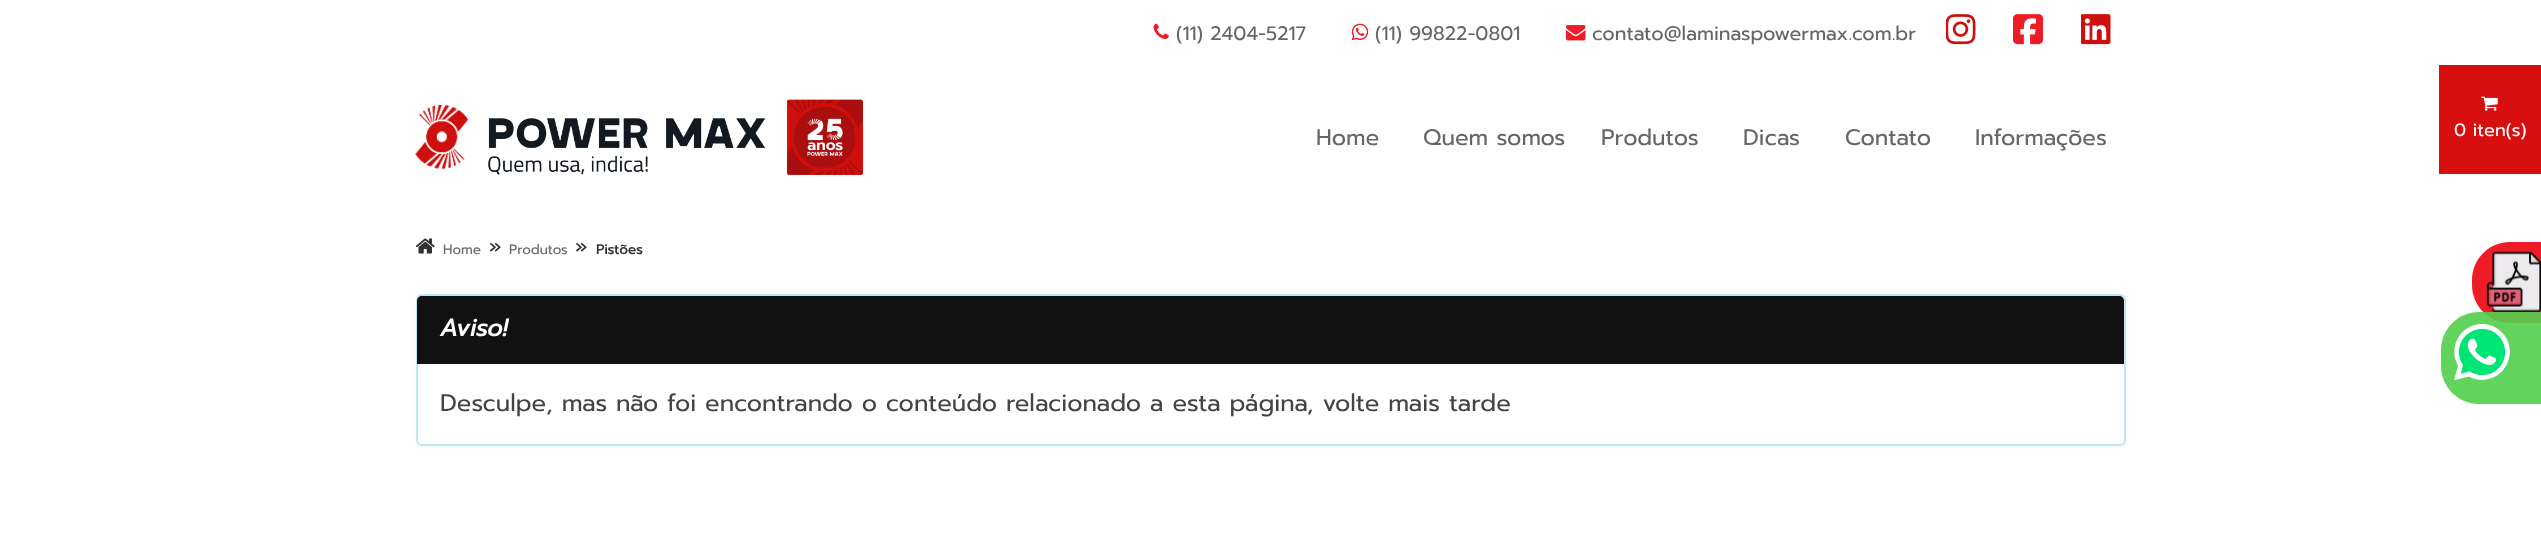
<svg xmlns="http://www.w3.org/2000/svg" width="2541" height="536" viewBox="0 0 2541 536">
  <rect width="100%" height="100%" fill="#fff"/>
  <image x="1153" y="23" width="16" height="16" href="img/1.png"/>
  <image x="1351" y="23" width="18" height="18" href="img/2.png"/>
  <image x="1566" y="25" width="20" height="16" href="img/3.png"/>
  <image x="1946" y="14" width="30" height="31" href="img/4.png"/>
  <image x="2013" y="14" width="30" height="31" href="img/5.png"/>
  <image x="2081" y="14" width="30" height="31" href="img/6.png"/>
  <image x="415" y="105" width="53" height="65" href="img/7.png"/>
  <image x="488" y="99" width="376" height="76" href="img/8.png"/>
  <path d="M2439 65h102v109H2439z" fill="#d70f0f"/>
  <image x="2481" y="96" width="17" height="15" href="img/9.png"/>
  <image x="415" y="238" width="20" height="16" href="img/10.png"/>
  <rect x="416" y="296" width="1710" height="151" rx="6" fill="#0000000d" filter="blur(1px)"/>
  <rect x="417" y="295" width="1708" height="150" rx="5" fill="#fff" stroke="#bce8f1" stroke-width="2"/>
  <path d="M422 296H2119C2122 296 2124 298 2124 301V363H417V301C417 298 419 296 422 296Z" fill="#111"/>
  <path d="M417 363h1707v1H417z" fill="#111"/>
  <path d="M2510 242H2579V323H2510C2489 323 2472 306 2472 285V280C2472 259 2489 242 2510 242Z" fill="#ed1c27"/>
  <image x="2486" y="251" width="55" height="61" href="img/11.png"/>
  <path d="M2479 312H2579V404H2479C2458 404 2441 387 2441 366V350C2441 329 2458 312 2479 312Z" fill="#52d04de8"/>
  <circle cx="2483" cy="353" r="27" fill="#00e676"/>
  <image x="2454" y="324" width="56" height="57" href="img/12.png"/>
  <g font-family="Prompt" font-size="19.5" fill="#666">
    <text x="1176" y="40">(11) 2404-5217</text>
    <text x="1375" y="40">(11) 99822-0801</text>
    <text x="1592" y="40">contato@laminaspowermax.com.br</text>
  </g>
  <g font-family="Prompt" font-size="22.5" fill="#666">
    <text x="1316" y="145">Home</text>
    <text x="1423" y="145">Quem somos</text>
    <text x="1601" y="145">Produtos</text>
    <text x="1743" y="145">Dicas</text>
    <text x="1845" y="145">Contato</text>
    <text x="1975" y="145">Informações</text>
  </g>
  <text x="2454" y="136" font-family="Prompt" font-size="18" fill="#fff">0 iten(s)</text>
  <text x="443" y="254" font-family="Prompt" font-size="13.5" fill="#666">Home</text>
  <text x="489" y="254" font-family="Prompt" font-size="21" fill="#333">»</text>
  <text x="509" y="254" font-family="Prompt" font-size="13.5" fill="#666">Produtos</text>
  <text x="575" y="254" font-family="Prompt" font-size="21" fill="#333">»</text>
  <text x="596" y="254" font-family="Prompt" font-size="13.5" font-weight="bold" fill="#333">Pistões</text>
  <text x="440" y="336" font-family="Prompt" font-size="24" font-weight="bold" font-style="italic" fill="#fff">Aviso!</text>
  <text x="440" y="411" font-family="Prompt" font-size="24" fill="#444">Desculpe, mas não foi encontrando o conteúdo relacionado a esta página, volte mais tarde</text>
</svg>
